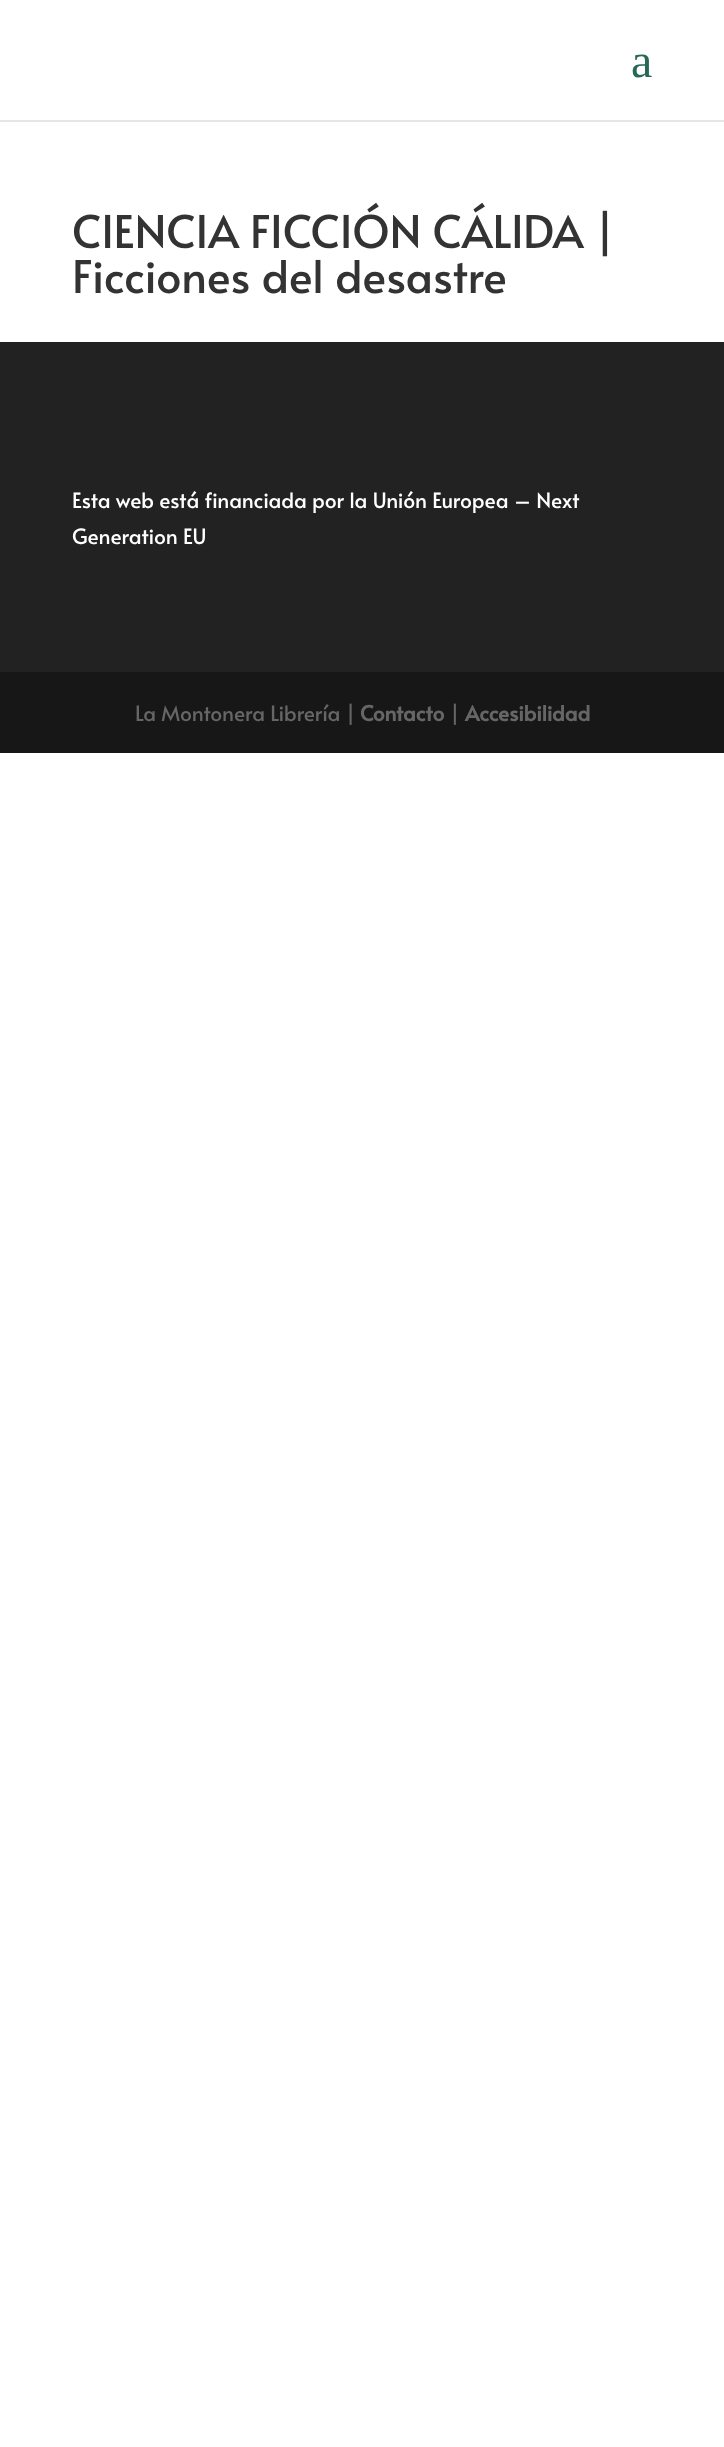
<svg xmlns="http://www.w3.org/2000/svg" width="724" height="2447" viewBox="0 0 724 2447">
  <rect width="100%" height="100%" fill="#fff"/>
  <path d="M0 120V122H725V2H724V120Z" fill="#e6e6e6"/>
  <path d="M0 342h724v330H0z" fill="#222"/>
  <path d="M0 672h724v81H0z" fill="#171717"/>
  <text x="631" y="77" font-family="Liberation Serif" font-size="48" fill="#246855">a</text>
  <g font-family="Alata" font-size="45" fill="#333">
    <text x="72" y="248">CIENCIA FICCIÓN CÁLIDA |</text>
    <text x="72" y="293">Ficciones del desastre</text>
  </g>
  <g font-family="Alata" font-size="21" fill="#fff">
    <text x="72" y="508">Esta web está financiada por la Unión Europea – Next</text>
    <text x="72" y="544">Generation EU</text>
  </g>
  <text x="135" y="721" font-family="Alata" font-size="21" fill="#666">La Montonera Librería |</text>
  <text x="360" y="721" font-family="Alata" font-size="21" font-weight="bold" fill="#666">Contacto</text>
  <text x="450" y="721" font-family="Alata" font-size="21" fill="#666">|</text>
  <text x="465" y="721" font-family="Alata" font-size="21" font-weight="bold" fill="#666">Accesibilidad</text>
</svg>
